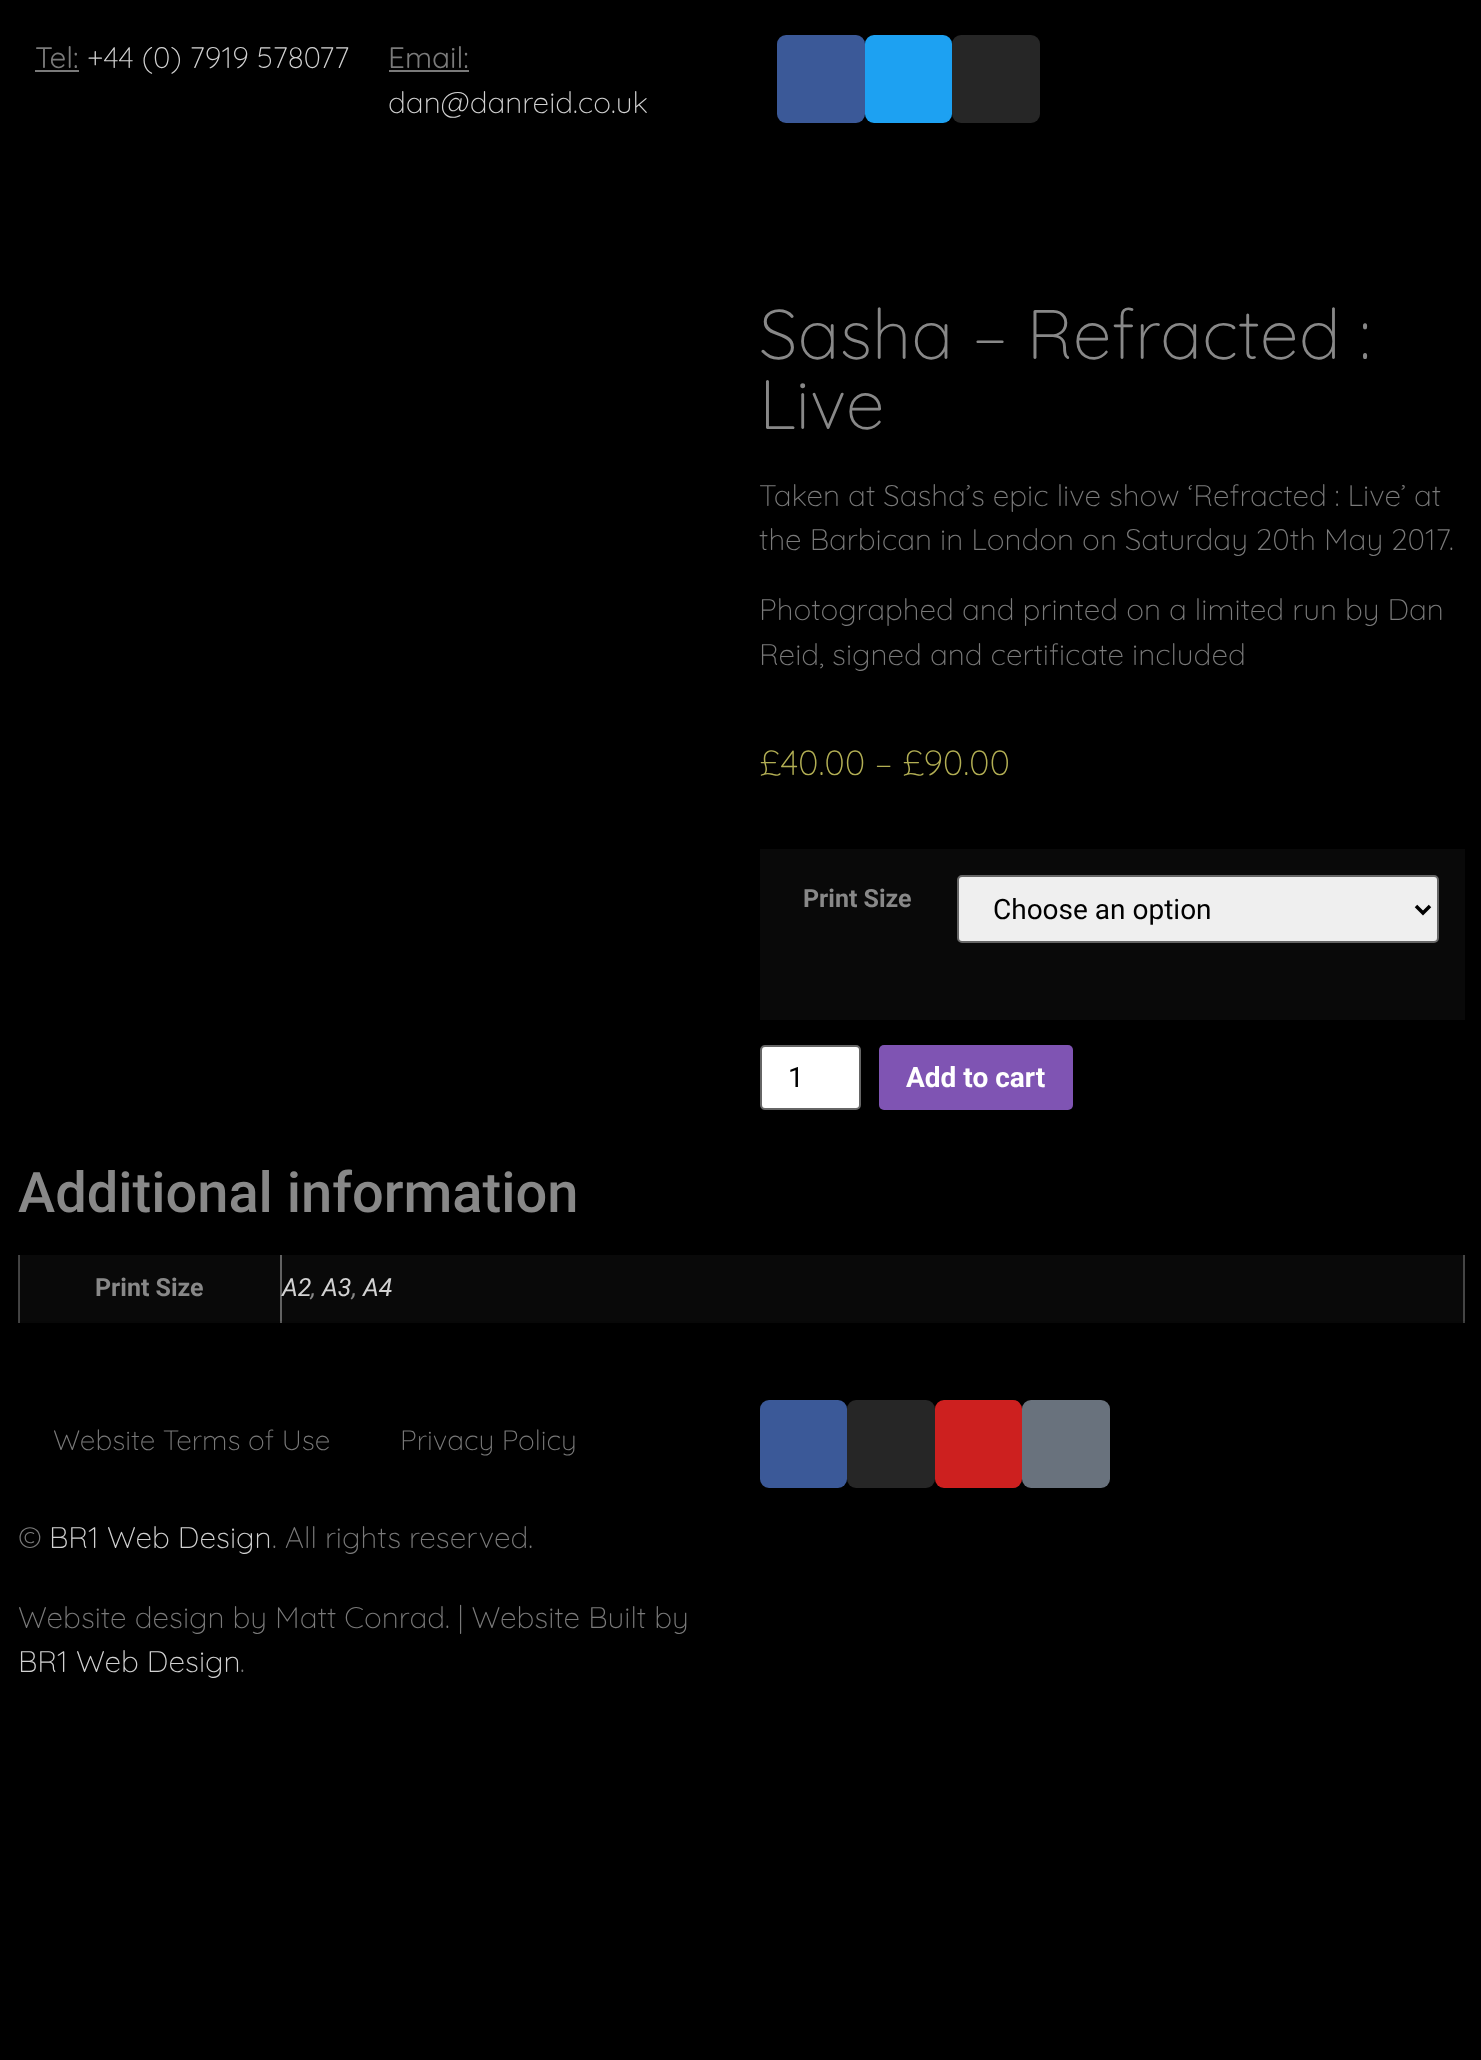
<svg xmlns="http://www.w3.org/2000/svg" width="1481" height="2060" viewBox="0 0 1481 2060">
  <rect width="100%" height="100%" fill="#000"/>
  <path d="M18 1255h1v68H18z" fill="#404040"/>
  <path d="M18 1321h2v2H18z" fill="#404040"/>
  <path d="M35 70h44v2H35z" fill="#7a7a7a"/>
  <path d="M389 70h80v2H389z" fill="#7a7a7a"/>
  <rect x="777" y="35" width="88" height="88" rx="9" fill="#3b5998"/>
  <rect x="865" y="35" width="87" height="88" rx="9" fill="#1da1f2"/>
  <rect x="952" y="35" width="88" height="88" rx="9" fill="#262626"/>
  <path d="M760 849h705v171H760z" fill="#090909"/>
  <rect x="958" y="876" width="480" height="66" rx="4" fill="#efefef" stroke="#666" stroke-width="2"/>
  <path d="M1416 906L1423 913L1430 906" fill="none" stroke="#000" stroke-width="3.5"/>
  <rect x="761" y="1046" width="99" height="63" rx="4" fill="#fff" stroke="#666" stroke-width="2"/>
  <rect x="879" y="1045" width="194" height="65" rx="5" fill="#7f54b3"/>
  <path d="M20 1255h260v66H20z" fill="#090909"/>
  <path d="M19 1255h1v68H19z" fill="#454545"/>
  <path d="M19 1321h1446v2H19z" fill="#080808"/>
  <path d="M19 1321h1v2H19z" fill="#444"/>
  <path d="M280 1255h2v68H280z" fill="#626262"/>
  <path d="M280 1321h2v2H280z" fill="#585858"/>
  <path d="M282 1255h1181v66H282z" fill="#090909"/>
  <path d="M1463 1255h2v68H1463z" fill="#454545"/>
  <path d="M1463 1321h2v2H1463z" fill="#3e3e3e"/>
  <rect x="760" y="1400" width="87" height="88" rx="9" fill="#3b5998"/>
  <rect x="847" y="1400" width="88" height="88" rx="9" fill="#262626"/>
  <rect x="935" y="1400" width="87" height="88" rx="9" fill="#cd201f"/>
  <rect x="1022" y="1400" width="88" height="88" rx="9" fill="#69727d"/>
  <text x="35" y="68" font-family="Quicksand" font-size="29.75" fill="#7a7a7a">Tel:</text>
  <text x="87" y="68" font-family="Quicksand" font-size="29.75" font-weight="300" fill="#d2d2d2">+44 (0) 7919 578077</text>
  <text x="388" y="68" font-family="Quicksand" font-size="29.75" fill="#7a7a7a">Email:</text>
  <text x="388" y="113" font-family="Quicksand" font-size="29.75" font-weight="300" fill="#d2d2d2">dan@danreid.co.uk</text>
  <g font-family="Quicksand" font-size="70" font-weight="300" fill="#888">
    <text x="759" y="359">Sasha – Refracted :</text>
    <text x="759" y="429">Live</text>
  </g>
  <g font-family="Quicksand" font-size="29.75" font-weight="300" fill="#7a7a7a">
    <text x="759" y="506">Taken at Sasha’s epic live show ‘Refracted : Live’ at</text>
    <text x="759" y="550">the Barbican in London on Saturday 20th May 2017.</text>
    <text x="759" y="620">Photographed and printed on a limited run by Dan</text>
    <text x="759" y="665">Reid, signed and certificate included</text>
  </g>
  <text x="759" y="775" font-family="Quicksand" font-size="35" font-weight="300" fill="#b3af54">£40.00 – £90.00</text>
  <text x="803" y="907" font-family="Roboto" font-size="25" font-weight="bold" fill="#888">Print Size</text>
  <g font-family="Roboto" font-size="28" fill="#000">
    <text x="993" y="919">Choose an option</text>
    <text x="788" y="1087">1</text>
  </g>
  <text x="906" y="1087" font-family="Roboto" font-size="28" font-weight="bold" fill="#fff">Add to cart</text>
  <text x="18" y="1212" font-family="Roboto" font-size="56" font-weight="500" fill="#888">Additional information</text>
  <text x="95" y="1296" font-family="Roboto" font-size="25" font-weight="bold" fill="#888">Print Size</text>
  <text x="282" y="1296" font-family="Roboto" font-size="25" font-style="italic" fill="#d2d2d2">A2</text>
  <text x="311" y="1296" font-family="Roboto" font-size="25" font-style="italic" fill="#888">,</text>
  <text x="322" y="1296" font-family="Roboto" font-size="25" font-style="italic" fill="#d2d2d2">A3</text>
  <text x="352" y="1296" font-family="Roboto" font-size="25" font-style="italic" fill="#888">,</text>
  <text x="363" y="1296" font-family="Roboto" font-size="25" font-style="italic" fill="#d2d2d2">A4</text>
  <g font-family="Quicksand" font-size="28" font-weight="300" fill="#7a7a7a">
    <text x="53" y="1450">Website Terms of Use</text>
    <text x="400" y="1450">Privacy Policy</text>
  </g>
  <text x="18" y="1548" font-family="Quicksand" font-size="29.75" font-weight="300" fill="#7a7a7a">©</text>
  <text x="49" y="1548" font-family="Quicksand" font-size="29.75" font-weight="300" fill="#d2d2d2">BR1 Web Design</text>
  <g font-family="Quicksand" font-size="29.75" font-weight="300" fill="#7a7a7a">
    <text x="272" y="1548">. All rights reserved.</text>
    <text x="18" y="1628">Website design by Matt Conrad. | Website Built by</text>
  </g>
  <text x="18" y="1672" font-family="Quicksand" font-size="29.75" font-weight="300" fill="#d2d2d2">BR1 Web Design</text>
  <text x="240" y="1672" font-family="Quicksand" font-size="29.75" font-weight="300" fill="#7a7a7a">.</text>
</svg>
